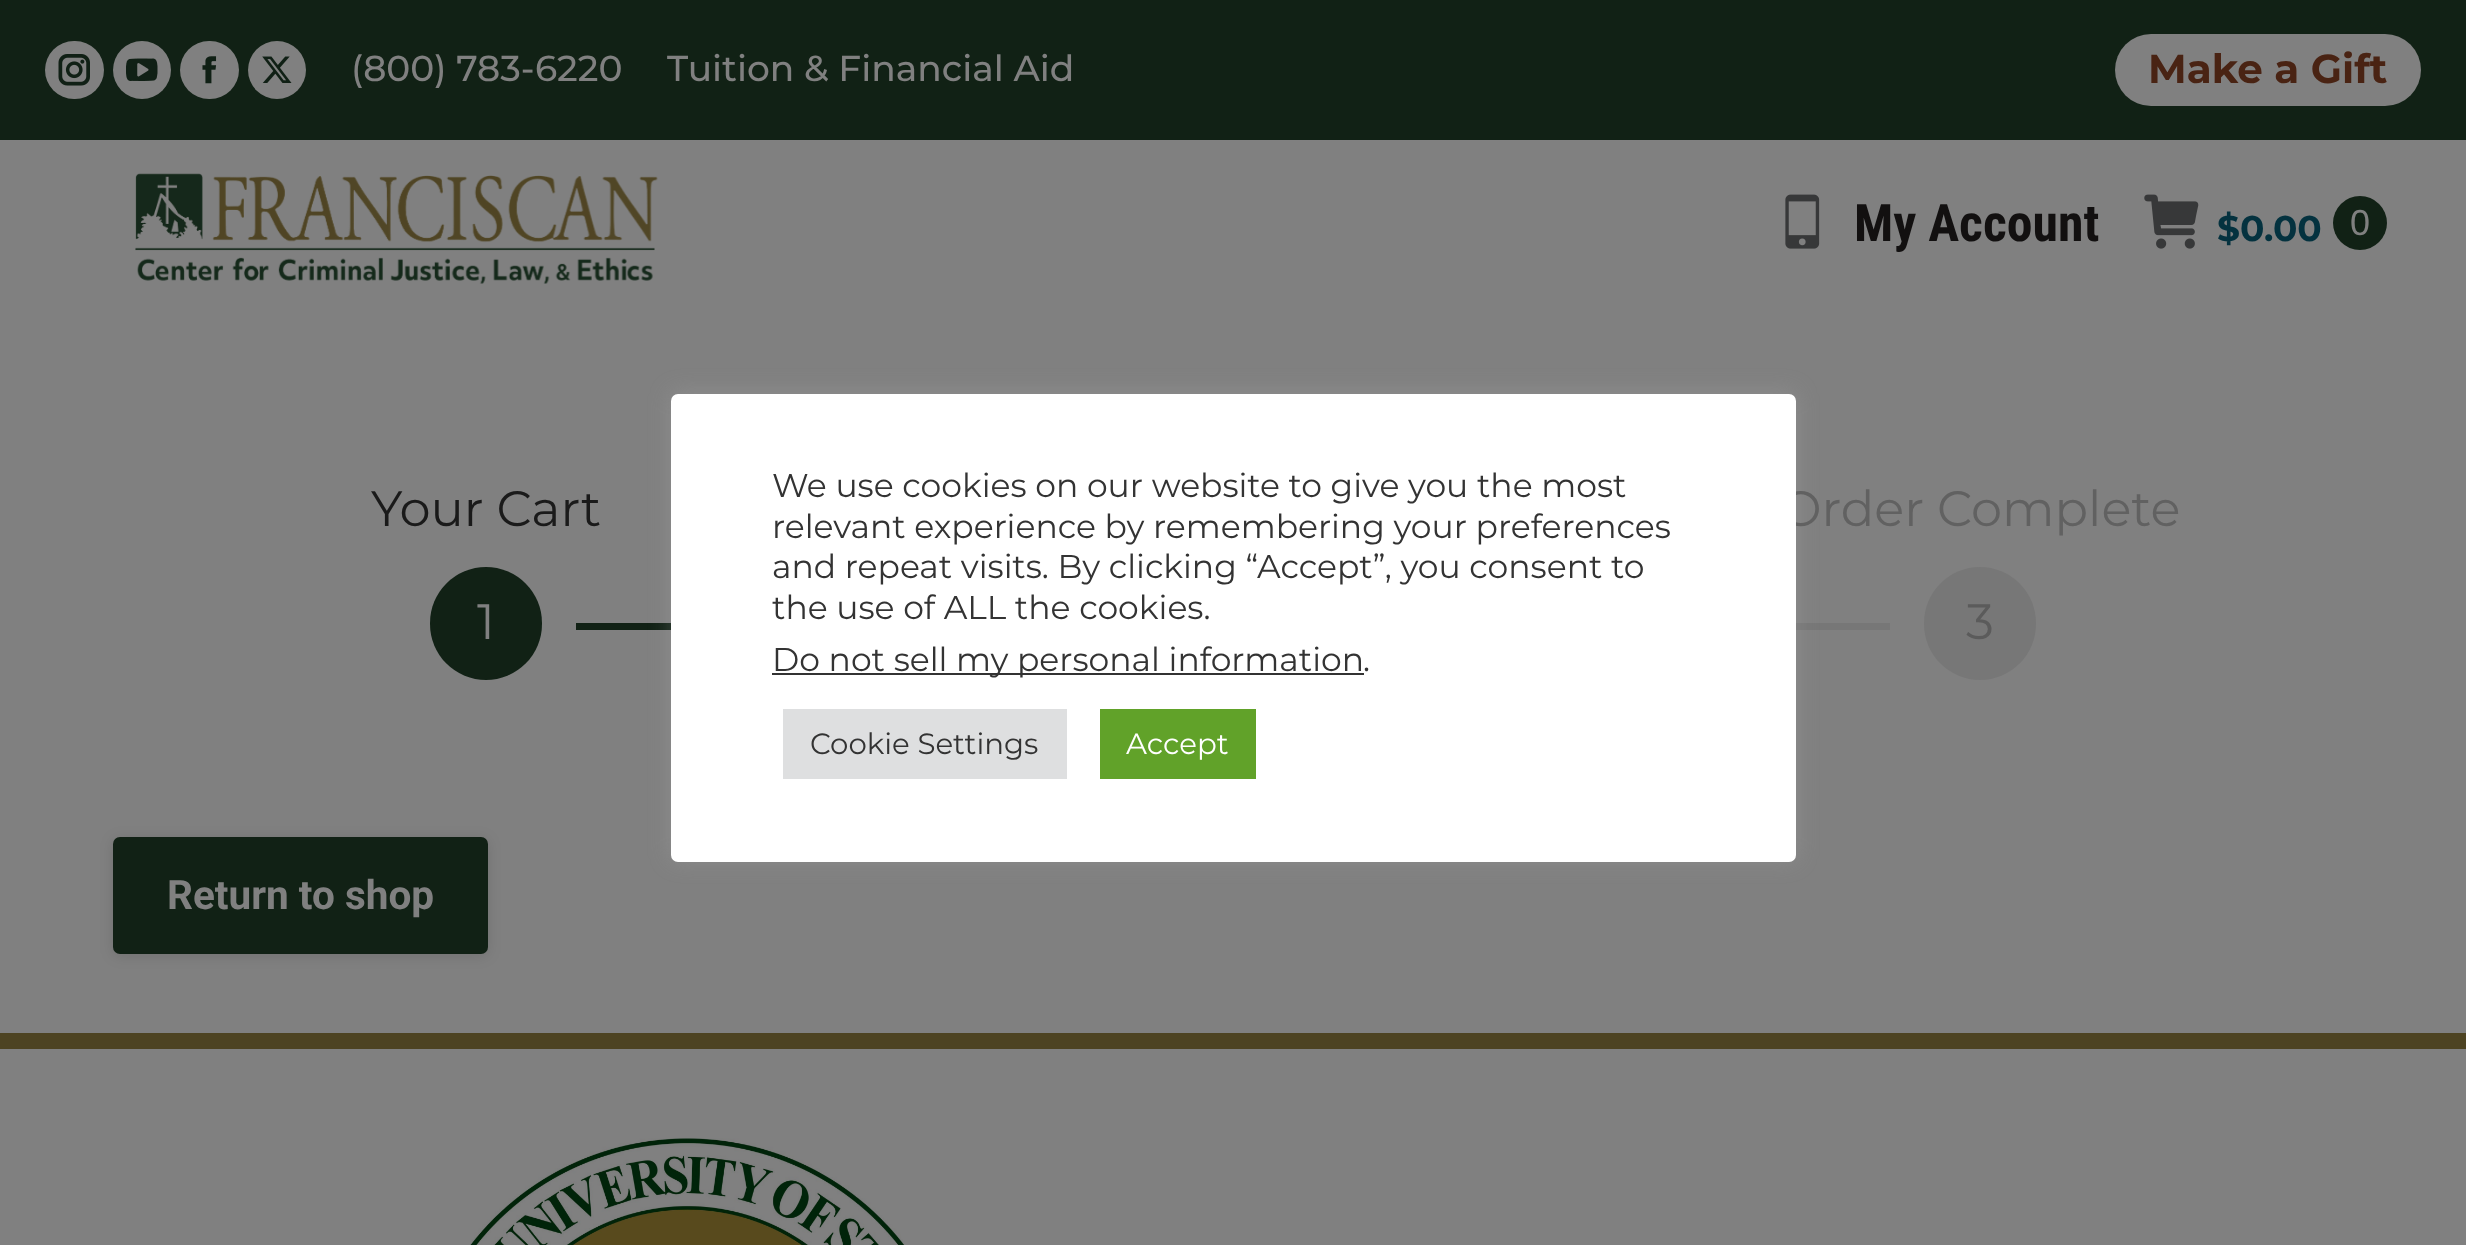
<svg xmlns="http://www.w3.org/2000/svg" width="2466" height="1245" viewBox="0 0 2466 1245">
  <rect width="100%" height="100%" fill="#808080"/>
  <path d="M0 0h2466v140H0z" fill="#112115"/>
  <rect x="45" y="41" width="59" height="58" rx="29" fill="#808080"/>
  <image x="58" y="54" width="32" height="32" href="img/1.png"/>
  <circle cx="142" cy="70" r="29" fill="#808080"/>
  <image x="126" y="58" width="32" height="23" href="img/2.png"/>
  <rect x="180" y="41" width="59" height="58" rx="29" fill="#808080"/>
  <image x="202" y="56" width="15" height="28" href="img/3.png"/>
  <circle cx="277" cy="70" r="29" fill="#808080"/>
  <image x="262" y="56" width="30" height="27" href="img/4.png"/>
  <rect x="2115" y="34" width="306" height="72" rx="36" fill="#808080"/>
  <image x="135" y="173" width="523" height="111" href="img/5.png"/>
  <image x="1785" y="194" width="35" height="55" href="img/6.png"/>
  <image x="2144" y="194" width="55" height="55" href="img/7.png"/>
  <circle cx="2360" cy="223" r="27" fill="#112115"/>
  <rect x="430" y="567" width="112" height="113" rx="56" fill="#112115"/>
  <path d="M576 623h95v7H576z" fill="#112115"/>
  <path d="M1796 623h94v7H1796z" fill="#777"/>
  <rect x="1924" y="567" width="112" height="113" rx="56" fill="#777"/>
  <rect x="113" y="839" width="375" height="117" rx="7" fill="#0000001f" filter="blur(7px)"/>
  <rect x="113" y="837" width="375" height="117" rx="7" fill="#112115"/>
  <path d="M0 1033h2466v16H0z" fill="#4d4322"/>
  <image x="470" y="1138" width="435" height="107" href="img/8.png"/>
  <rect x="671" y="392" width="1125" height="468" rx="7" fill="#acabab4d" filter="blur(11px)"/>
  <g font-family="Montserrat" font-size="36" font-weight="500" fill="#808080">
    <text x="351" y="81">(800) 783-6220</text>
    <text x="667" y="81">Tuition &amp; Financial Aid</text>
  </g>
  <text x="2148" y="83" font-family="Montserrat" font-size="40.5" font-weight="bold" fill="#492313">Make a Gift</text>
  <text x="1854" y="241" font-family="Roboto Condensed" font-size="51.75" font-weight="bold" fill="#121010">My Account</text>
  <text x="2217" y="241" font-family="Montserrat" font-size="36" font-weight="bold" fill="#04323f">$0.00</text>
  <text x="2350" y="235" font-family="Liberation Sans" font-size="36" fill="#808080">0</text>
  <text x="371" y="526" font-family="Montserrat" font-size="49.5" fill="#1a1a1a">Your Cart</text>
  <text x="477" y="639" font-family="Montserrat" font-size="49.5" fill="#808080">1</text>
  <text x="1780" y="526" font-family="Montserrat" font-size="49.5" fill="#616161">Order Complete</text>
  <text x="1966" y="639" font-family="Montserrat" font-size="49.5" fill="#5b5b5b">3</text>
  <text x="167" y="909" font-family="Roboto" font-size="40.5" font-weight="bold" fill="#808080">Return to shop</text>
  <rect x="671" y="394" width="1125" height="468" rx="7" fill="#fff"/>
  <g font-family="Montserrat" font-size="33" fill="#333">
    <text x="772" y="497">We use cookies on our website to give you the most</text>
    <text x="772" y="538">relevant experience by remembering your preferences</text>
    <text x="772" y="578">and repeat visits. By clicking “Accept”, you consent to</text>
    <text x="772" y="619">the use of ALL the cookies.</text>
  </g>
  <path d="M772 673h592v2H772z" fill="#333"/>
  <g font-family="Montserrat" font-size="33" fill="#333">
    <text x="772" y="671">Do not sell my personal information</text>
    <text x="1363" y="671">.</text>
  </g>
  <path d="M783 709h284v70H783z" fill="#dedfe0"/>
  <text x="810" y="754" font-family="Montserrat" font-size="29.25" fill="#333">Cookie Settings</text>
  <path d="M1100 709h156v70H1100z" fill="#61a229"/>
  <text x="1126" y="754" font-family="Montserrat" font-size="29.25" fill="#fff">Accept</text>
</svg>
